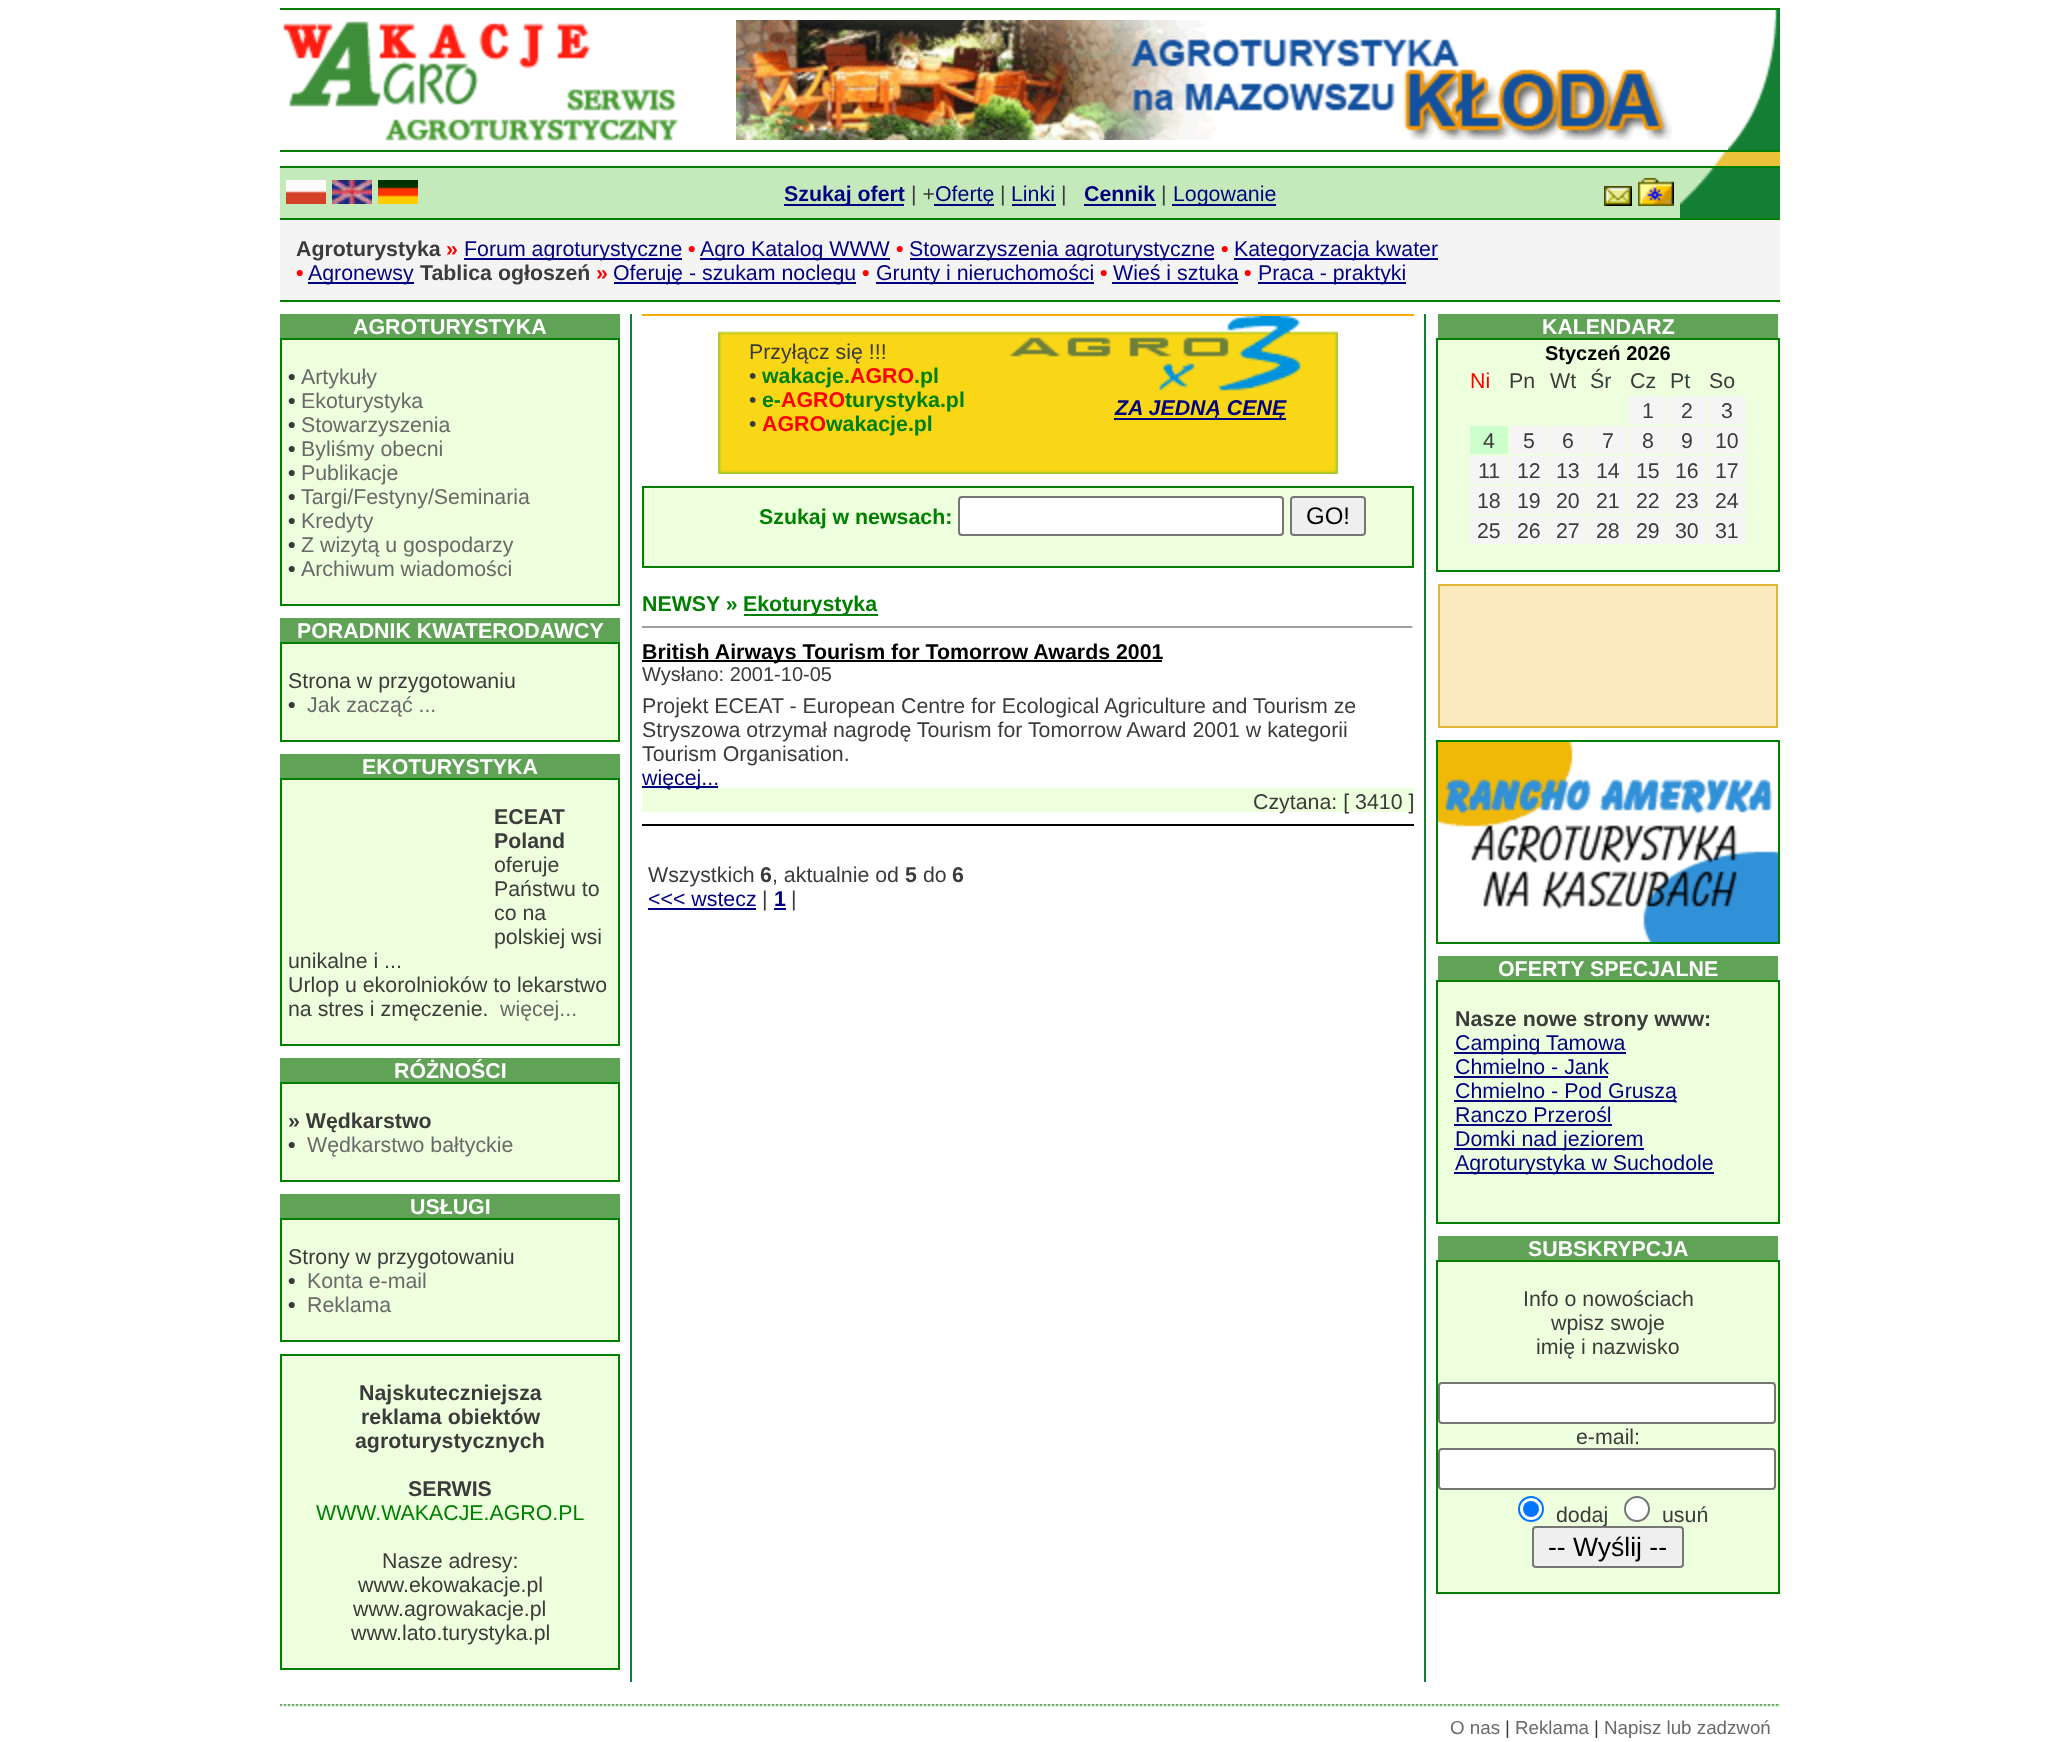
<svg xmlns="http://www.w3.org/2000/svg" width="2060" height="1742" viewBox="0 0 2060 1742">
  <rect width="100%" height="100%" fill="#fff"/>
  <path d="M280 8h1500v2H280z" fill="#008000"/>
  <path d="M280 8h2v2H280z" fill="#187010"/>
  <image x="283" y="21" width="396" height="120" href="img/1.png"/>
  <image x="736" y="20" width="936" height="120" href="img/2.png"/>
  <image x="1728" y="10" width="52" height="140" href="img/3.png"/>
  <path d="M280 150h1500v2H280z" fill="#008000"/>
  <path d="M280 150h2v2H280z" fill="#187010"/>
  <image x="1713" y="152" width="67" height="14" href="img/4.png"/>
  <path d="M280 166h1500v2H280z" fill="#008000"/>
  <path d="M280 166h2v2H280z" fill="#187010"/>
  <path d="M280 168h1400v50H280z" fill="#c4eabc"/>
  <image x="286" y="180" width="40" height="24" href="img/5.png"/>
  <image x="332" y="180" width="40" height="24" href="img/6.png"/>
  <image x="378" y="180" width="40" height="24" href="img/7.png"/>
  <path d="M784 204h120v2H784z" fill="#000080"/>
  <path d="M934 204h60v2H934z" fill="#000080"/>
  <path d="M1012 204h44v2H1012z" fill="#000080"/>
  <path d="M1084 204h72v2H1084z" fill="#000080"/>
  <path d="M1172 204h104v2H1172z" fill="#000080"/>
  <image x="1604" y="186" width="28" height="20" href="img/8.png"/>
  <image x="1638" y="178" width="36" height="28" href="img/9.png"/>
  <image x="1680" y="168" width="100" height="50" href="img/10.png"/>
  <path d="M280 218h1500v2H280z" fill="#008000"/>
  <path d="M280 218h2v2H280z" fill="#187010"/>
  <path d="M280 220h1500v80H280z" fill="#f4f4f4"/>
  <path d="M464 258h218v2H464z" fill="#000080"/>
  <path d="M700 258h190v2H700z" fill="#000080"/>
  <path d="M910 258h304v2H910z" fill="#000080"/>
  <path d="M1234 258h204v2H1234z" fill="#000080"/>
  <path d="M308 282h106v2H308z" fill="#000080"/>
  <path d="M614 282h242v2H614z" fill="#000080"/>
  <path d="M876 282h218v2H876z" fill="#000080"/>
  <path d="M1112 282h126v2H1112z" fill="#000080"/>
  <path d="M1258 282h148v2H1258z" fill="#000080"/>
  <path d="M280 300h1500v2H280z" fill="#008000"/>
  <path d="M280 300h2v2H280z" fill="#187010"/>
  <path d="M280 314h340v24H280z" fill="#60a356"/>
  <path d="M280 338h340v268H280z" fill="#008000"/>
  <path d="M282 340h336v264H282z" fill="#efd"/>
  <path d="M280 618h340v24H280z" fill="#60a356"/>
  <path d="M280 642h340v100H280z" fill="#008000"/>
  <path d="M282 644h336v96H282z" fill="#efd"/>
  <path d="M280 754h340v24H280z" fill="#60a356"/>
  <path d="M280 778h340v268H280z" fill="#008000"/>
  <path d="M282 780h336v264H282z" fill="#efd"/>
  <path d="M280 1058h340v24H280z" fill="#60a356"/>
  <path d="M280 1082h340v100H280z" fill="#008000"/>
  <path d="M282 1084h336v96H282z" fill="#efd"/>
  <path d="M280 1194h340v24H280z" fill="#60a356"/>
  <path d="M280 1218h340v124H280z" fill="#008000"/>
  <path d="M282 1220h336v120H282z" fill="#efd"/>
  <path d="M280 1354h340v316H280z" fill="#008000"/>
  <path d="M282 1356h336v312H282z" fill="#efd"/>
  <path d="M630 314h2v1368H630z" fill="#157e35"/>
  <path d="M642 314h772v2H642z" fill="#f4ab03"/>
  <image x="718" y="316" width="620" height="158" href="img/11.png"/>
  <path d="M1114 418h172v2H1114z" fill="#000080"/>
  <path d="M642 486h772v82H642z" fill="#008000"/>
  <path d="M644 488h768v78H644z" fill="#efd"/>
  <rect x="959" y="497" width="324" height="38" rx="3" fill="#fff" stroke="#767676" stroke-width="2"/>
  <rect x="1291" y="497" width="74" height="38" rx="3" fill="#efefef" stroke="#767676" stroke-width="2"/>
  <path d="M744 614h134v2H744z" fill="#008000"/>
  <path d="M642 626h772v2H642z" fill="#9f9f9f"/>
  <path d="M1412 626h2v2H1412z" fill="#eee"/>
  <path d="M642 660h520v2H642z" fill="#000"/>
  <path d="M642 786h76v2H642z" fill="#000080"/>
  <path d="M642 788h772v24H642z" fill="#efd"/>
  <path d="M642 824h772v2H642z" fill="#000"/>
  <path d="M648 908h108v2H648z" fill="#000080"/>
  <path d="M774 908h12v2H774z" fill="#000080"/>
  <path d="M1424 314h2v1368H1424z" fill="#157e35"/>
  <path d="M1438 314h340v24H1438z" fill="#60a356"/>
  <path d="M1436 338h344v234H1436z" fill="#008000"/>
  <path d="M1438 340h340v230H1438z" fill="#efd"/>
  <path d="M1628 396h38v28H1628z" fill="#f5f5f5"/>
  <path d="M1668 396h38v28H1668z" fill="#f5f5f5"/>
  <path d="M1708 396h38v28H1708z" fill="#f5f5f5"/>
  <path d="M1470 426h38v28H1470z" fill="#cfc"/>
  <path d="M1510 426h38v28H1510z" fill="#f5f5f5"/>
  <path d="M1550 426h36v28H1550z" fill="#f5f5f5"/>
  <path d="M1588 426h38v28H1588z" fill="#f5f5f5"/>
  <path d="M1628 426h38v28H1628z" fill="#f5f5f5"/>
  <path d="M1668 426h38v28H1668z" fill="#f5f5f5"/>
  <path d="M1708 426h38v28H1708z" fill="#f5f5f5"/>
  <path d="M1470 456h38v28H1470z" fill="#f5f5f5"/>
  <path d="M1510 456h38v28H1510z" fill="#f5f5f5"/>
  <path d="M1550 456h36v28H1550z" fill="#f5f5f5"/>
  <path d="M1588 456h38v28H1588z" fill="#f5f5f5"/>
  <path d="M1628 456h38v28H1628z" fill="#f5f5f5"/>
  <path d="M1668 456h38v28H1668z" fill="#f5f5f5"/>
  <path d="M1708 456h38v28H1708z" fill="#f5f5f5"/>
  <path d="M1470 486h38v28H1470z" fill="#f5f5f5"/>
  <path d="M1510 486h38v28H1510z" fill="#f5f5f5"/>
  <path d="M1550 486h36v28H1550z" fill="#f5f5f5"/>
  <path d="M1588 486h38v28H1588z" fill="#f5f5f5"/>
  <path d="M1628 486h38v28H1628z" fill="#f5f5f5"/>
  <path d="M1668 486h38v28H1668z" fill="#f5f5f5"/>
  <path d="M1708 486h38v28H1708z" fill="#f5f5f5"/>
  <path d="M1470 516h38v28H1470z" fill="#f5f5f5"/>
  <path d="M1510 516h38v28H1510z" fill="#f5f5f5"/>
  <path d="M1550 516h36v28H1550z" fill="#f5f5f5"/>
  <path d="M1588 516h38v28H1588z" fill="#f5f5f5"/>
  <path d="M1628 516h38v28H1628z" fill="#f5f5f5"/>
  <path d="M1668 516h38v28H1668z" fill="#f5f5f5"/>
  <path d="M1708 516h38v28H1708z" fill="#f5f5f5"/>
  <path d="M1438 584h340v144H1438z" fill="#e0b838"/>
  <path d="M1440 586h336v140H1440z" fill="#fce9bd"/>
  <path d="M1436 740h344v204H1436z" fill="#008000"/>
  <image x="1438" y="742" width="340" height="200" href="img/12.png"/>
  <path d="M1438 956h340v24H1438z" fill="#60a356"/>
  <path d="M1436 980h344v244H1436z" fill="#008000"/>
  <path d="M1438 982h340v240H1438z" fill="#efd"/>
  <path d="M1454 1052h172v2H1454z" fill="#000080"/>
  <path d="M1454 1076h154v2H1454z" fill="#000080"/>
  <path d="M1454 1100h222v2H1454z" fill="#000080"/>
  <path d="M1454 1124h158v2H1454z" fill="#000080"/>
  <path d="M1454 1148h190v2H1454z" fill="#000080"/>
  <path d="M1454 1172h260v2H1454z" fill="#000080"/>
  <path d="M1438 1236h340v24H1438z" fill="#60a356"/>
  <path d="M1436 1260h344v334H1436z" fill="#008000"/>
  <path d="M1438 1262h340v330H1438z" fill="#efd"/>
  <rect x="1439" y="1383" width="336" height="40" rx="3" fill="#fff" stroke="#767676" stroke-width="2"/>
  <rect x="1439" y="1449" width="336" height="40" rx="3" fill="#fff" stroke="#767676" stroke-width="2"/>
  <circle cx="1531" cy="1509" r="12" fill="#fff" stroke="#0075ff" stroke-width="2"/>
  <circle cx="1531" cy="1509" r="8" fill="#0075ff"/>
  <circle cx="1637" cy="1509" r="12" fill="#fff" stroke="#767676" stroke-width="2"/>
  <image x="280" y="1704" width="1500" height="3" href="img/13.png"/>
  <text x="784" y="201" font-family="Liberation Sans" font-size="21.35" font-weight="bold" fill="#000080">Szukaj ofert</text>
  <text x="911" y="201" font-family="Liberation Sans" font-size="21.35" fill="#3b3b3b">| +</text>
  <text x="935" y="201" font-family="Liberation Sans" font-size="21.35" fill="#000080">Ofertę</text>
  <text x="1000" y="201" font-family="Liberation Sans" font-size="21.35" fill="#3b3b3b">|</text>
  <text x="1011" y="201" font-family="Liberation Sans" font-size="21.35" fill="#000080">Linki</text>
  <text x="1061" y="201" font-family="Liberation Sans" font-size="21.35" fill="#3b3b3b">|</text>
  <text x="1084" y="201" font-family="Liberation Sans" font-size="21.35" font-weight="bold" fill="#000080">Cennik</text>
  <text x="1161" y="201" font-family="Liberation Sans" font-size="21.35" fill="#3b3b3b">|</text>
  <text x="1173" y="201" font-family="Liberation Sans" font-size="21.35" fill="#000080">Logowanie</text>
  <text x="296" y="256" font-family="Liberation Sans" font-size="21.35" font-weight="bold" fill="#3b3b3b">Agroturystyka</text>
  <text x="446" y="256" font-family="Liberation Sans" font-size="21.35" font-weight="bold" fill="#f00">»</text>
  <text x="464" y="256" font-family="Liberation Sans" font-size="21.35" fill="#000080">Forum agroturystyczne</text>
  <text x="688" y="256" font-family="Liberation Sans" font-size="21.35" font-weight="bold" fill="#f00">•</text>
  <text x="700" y="256" font-family="Liberation Sans" font-size="21.35" fill="#000080">Agro Katalog WWW</text>
  <text x="896" y="256" font-family="Liberation Sans" font-size="21.35" font-weight="bold" fill="#f00">•</text>
  <text x="909" y="256" font-family="Liberation Sans" font-size="21.35" fill="#000080">Stowarzyszenia agroturystyczne</text>
  <text x="1221" y="256" font-family="Liberation Sans" font-size="21.35" font-weight="bold" fill="#f00">•</text>
  <text x="1234" y="256" font-family="Liberation Sans" font-size="21.35" fill="#000080">Kategoryzacja kwater</text>
  <text x="296" y="280" font-family="Liberation Sans" font-size="21.35" font-weight="bold" fill="#f00">•</text>
  <text x="308" y="280" font-family="Liberation Sans" font-size="21.35" fill="#000080">Agronewsy</text>
  <text x="420" y="280" font-family="Liberation Sans" font-size="21.35" font-weight="bold" fill="#3b3b3b">Tablica ogłoszeń</text>
  <text x="596" y="280" font-family="Liberation Sans" font-size="21.35" font-weight="bold" fill="#f00">»</text>
  <text x="613" y="280" font-family="Liberation Sans" font-size="21.35" fill="#000080">Oferuję - szukam noclegu</text>
  <text x="862" y="280" font-family="Liberation Sans" font-size="21.35" font-weight="bold" fill="#f00">•</text>
  <text x="876" y="280" font-family="Liberation Sans" font-size="21.35" fill="#000080">Grunty i nieruchomości</text>
  <text x="1100" y="280" font-family="Liberation Sans" font-size="21.35" font-weight="bold" fill="#f00">•</text>
  <text x="1113" y="280" font-family="Liberation Sans" font-size="21.35" fill="#000080">Wieś i sztuka</text>
  <text x="1244" y="280" font-family="Liberation Sans" font-size="21.35" font-weight="bold" fill="#f00">•</text>
  <text x="1258" y="280" font-family="Liberation Sans" font-size="21.35" fill="#000080">Praca - praktyki</text>
  <text x="353" y="334" font-family="Liberation Sans" font-size="21.35" font-weight="bold" fill="#fff">AGROTURYSTYKA</text>
  <text x="288" y="384" font-family="Liberation Sans" font-size="21.35" font-weight="bold" fill="#3b3b3b">•</text>
  <text x="301" y="384" font-family="Liberation Sans" font-size="21.35" fill="#696969">Artykuły</text>
  <text x="288" y="408" font-family="Liberation Sans" font-size="21.35" font-weight="bold" fill="#3b3b3b">•</text>
  <text x="301" y="408" font-family="Liberation Sans" font-size="21.35" fill="#696969">Ekoturystyka</text>
  <text x="288" y="432" font-family="Liberation Sans" font-size="21.35" font-weight="bold" fill="#3b3b3b">•</text>
  <text x="301" y="432" font-family="Liberation Sans" font-size="21.35" fill="#696969">Stowarzyszenia</text>
  <text x="288" y="456" font-family="Liberation Sans" font-size="21.35" font-weight="bold" fill="#3b3b3b">•</text>
  <text x="301" y="456" font-family="Liberation Sans" font-size="21.35" fill="#696969">Byliśmy obecni</text>
  <text x="288" y="480" font-family="Liberation Sans" font-size="21.35" font-weight="bold" fill="#3b3b3b">•</text>
  <text x="301" y="480" font-family="Liberation Sans" font-size="21.35" fill="#696969">Publikacje</text>
  <text x="288" y="504" font-family="Liberation Sans" font-size="21.35" font-weight="bold" fill="#3b3b3b">•</text>
  <text x="301" y="504" font-family="Liberation Sans" font-size="21.35" fill="#696969">Targi/Festyny/Seminaria</text>
  <text x="288" y="528" font-family="Liberation Sans" font-size="21.35" font-weight="bold" fill="#3b3b3b">•</text>
  <text x="301" y="528" font-family="Liberation Sans" font-size="21.35" fill="#696969">Kredyty</text>
  <text x="288" y="552" font-family="Liberation Sans" font-size="21.35" font-weight="bold" fill="#3b3b3b">•</text>
  <text x="301" y="552" font-family="Liberation Sans" font-size="21.35" fill="#696969">Z wizytą u gospodarzy</text>
  <text x="288" y="576" font-family="Liberation Sans" font-size="21.35" font-weight="bold" fill="#3b3b3b">•</text>
  <text x="301" y="576" font-family="Liberation Sans" font-size="21.35" fill="#696969">Archiwum wiadomości</text>
  <text x="297" y="638" font-family="Liberation Sans" font-size="21.35" font-weight="bold" fill="#fff">PORADNIK KWATERODAWCY</text>
  <text x="288" y="688" font-family="Liberation Sans" font-size="21.35" fill="#3b3b3b">Strona w przygotowaniu</text>
  <text x="288" y="712" font-family="Liberation Sans" font-size="21.35" font-weight="bold" fill="#3b3b3b">•</text>
  <text x="307" y="712" font-family="Liberation Sans" font-size="21.35" fill="#696969">Jak zacząć ...</text>
  <text x="362" y="774" font-family="Liberation Sans" font-size="21.35" font-weight="bold" fill="#fff">EKOTURYSTYKA</text>
  <g font-family="Liberation Sans" font-size="21.35" font-weight="bold" fill="#3b3b3b">
    <text x="494" y="824">ECEAT</text>
    <text x="494" y="848">Poland</text>
  </g>
  <g font-family="Liberation Sans" font-size="21.35" fill="#3b3b3b">
    <text x="494" y="872">oferuje</text>
    <text x="494" y="896">Państwu to</text>
    <text x="494" y="920">co na</text>
    <text x="494" y="944">polskiej wsi</text>
    <text x="288" y="968">unikalne i ...</text>
    <text x="288" y="992">Urlop u ekorolnioków to lekarstwo</text>
    <text x="288" y="1016">na stres i zmęczenie.</text>
  </g>
  <text x="500" y="1016" font-family="Liberation Sans" font-size="21.35" fill="#696969">więcej...</text>
  <text x="394" y="1078" font-family="Liberation Sans" font-size="21.35" font-weight="bold" fill="#fff">RÓŻNOŚCI</text>
  <g font-family="Liberation Sans" font-size="21.35" font-weight="bold" fill="#3b3b3b">
    <text x="288" y="1128">» Wędkarstwo</text>
    <text x="288" y="1152">•</text>
  </g>
  <text x="307" y="1152" font-family="Liberation Sans" font-size="21.35" fill="#696969">Wędkarstwo bałtyckie</text>
  <text x="410" y="1214" font-family="Liberation Sans" font-size="21.35" font-weight="bold" fill="#fff">USŁUGI</text>
  <text x="288" y="1264" font-family="Liberation Sans" font-size="21.35" fill="#3b3b3b">Strony w przygotowaniu</text>
  <text x="288" y="1288" font-family="Liberation Sans" font-size="21.35" font-weight="bold" fill="#3b3b3b">•</text>
  <text x="307" y="1288" font-family="Liberation Sans" font-size="21.35" fill="#696969">Konta e-mail</text>
  <text x="288" y="1312" font-family="Liberation Sans" font-size="21.35" font-weight="bold" fill="#3b3b3b">•</text>
  <text x="307" y="1312" font-family="Liberation Sans" font-size="21.35" fill="#696969">Reklama</text>
  <g font-family="Liberation Sans" font-size="21.35" font-weight="bold" fill="#3b3b3b">
    <text x="359" y="1400">Najskuteczniejsza</text>
    <text x="361" y="1424">reklama obiektów</text>
    <text x="355" y="1448">agroturystycznych</text>
    <text x="408" y="1496">SERWIS</text>
  </g>
  <text x="316" y="1520" font-family="Liberation Sans" font-size="21.35" fill="#008000">WWW.WAKACJE.AGRO.PL</text>
  <g font-family="Liberation Sans" font-size="21.35" fill="#3b3b3b">
    <text x="382" y="1568">Nasze adresy:</text>
    <text x="358" y="1592">www.ekowakacje.pl</text>
    <text x="353" y="1616">www.agrowakacje.pl</text>
    <text x="351" y="1640">www.lato.turystyka.pl</text>
    <text x="749" y="359">Przyłącz się !!!</text>
  </g>
  <text x="1115" y="415" font-family="Liberation Sans" font-size="21.35" font-weight="bold" font-style="italic" fill="#000080">ZA JEDNĄ CENĘ</text>
  <text x="749" y="383" font-family="Liberation Sans" font-size="21.35" fill="#3b3b3b">•</text>
  <text x="762" y="383" font-family="Liberation Sans" font-size="21.35" font-weight="bold" fill="#008000">wakacje.</text>
  <text x="850" y="383" font-family="Liberation Sans" font-size="21.35" font-weight="bold" fill="#f00">AGRO</text>
  <text x="914" y="383" font-family="Liberation Sans" font-size="21.35" font-weight="bold" fill="#008000">.pl</text>
  <text x="749" y="407" font-family="Liberation Sans" font-size="21.35" fill="#3b3b3b">•</text>
  <text x="762" y="407" font-family="Liberation Sans" font-size="21.35" font-weight="bold" fill="#008000">e-</text>
  <text x="781" y="407" font-family="Liberation Sans" font-size="21.35" font-weight="bold" fill="#f00">AGRO</text>
  <text x="845" y="407" font-family="Liberation Sans" font-size="21.35" font-weight="bold" fill="#008000">turystyka.pl</text>
  <text x="749" y="431" font-family="Liberation Sans" font-size="21.35" fill="#3b3b3b">•</text>
  <text x="762" y="431" font-family="Liberation Sans" font-size="21.35" font-weight="bold" fill="#f00">AGRO</text>
  <g font-family="Liberation Sans" font-size="21.35" font-weight="bold" fill="#008000">
    <text x="826" y="431">wakacje.pl</text>
    <text x="759" y="524">Szukaj w newsach:</text>
  </g>
  <text x="1306" y="524" font-family="Liberation Sans" font-size="24" fill="#000">GO!</text>
  <g font-family="Liberation Sans" font-size="21.35" font-weight="bold" fill="#008000">
    <text x="642" y="611">NEWSY »</text>
    <text x="743" y="611">Ekoturystyka</text>
  </g>
  <text x="642" y="659" font-family="Liberation Sans" font-size="21.35" font-weight="bold" fill="#000">British Airways Tourism for Tomorrow Awards 2001</text>
  <text x="642" y="681" font-family="Liberation Sans" font-size="20" fill="#3b3b3b">Wysłano: 2001-10-05</text>
  <g font-family="Liberation Sans" font-size="21.35" fill="#3b3b3b">
    <text x="642" y="713">Projekt ECEAT - European Centre for Ecological Agriculture and Tourism ze</text>
    <text x="642" y="737">Stryszowa otrzymał nagrodę Tourism for Tomorrow Award 2001 w kategorii</text>
    <text x="642" y="761">Tourism Organisation.</text>
  </g>
  <text x="642" y="785" font-family="Liberation Sans" font-size="21.35" fill="#000080">więcej...</text>
  <g font-family="Liberation Sans" font-size="21.35" fill="#3b3b3b">
    <text x="1253" y="809">Czytana: [ 3410 ]</text>
    <text x="648" y="882">Wszystkich</text>
  </g>
  <text x="760" y="882" font-family="Liberation Sans" font-size="21.35" font-weight="bold" fill="#3b3b3b">6</text>
  <text x="772" y="882" font-family="Liberation Sans" font-size="21.35" fill="#3b3b3b">, aktualnie od</text>
  <text x="905" y="882" font-family="Liberation Sans" font-size="21.35" font-weight="bold" fill="#3b3b3b">5</text>
  <text x="923" y="882" font-family="Liberation Sans" font-size="21.35" fill="#3b3b3b">do</text>
  <text x="952" y="882" font-family="Liberation Sans" font-size="21.35" font-weight="bold" fill="#3b3b3b">6</text>
  <text x="648" y="906" font-family="Liberation Sans" font-size="21.35" fill="#000080">&lt;&lt;&lt; wstecz</text>
  <text x="762" y="906" font-family="Liberation Sans" font-size="21.35" fill="#3b3b3b">|</text>
  <text x="774" y="906" font-family="Liberation Sans" font-size="21.35" font-weight="bold" fill="#000080">1</text>
  <text x="791" y="906" font-family="Liberation Sans" font-size="21.35" fill="#3b3b3b">|</text>
  <text x="1542" y="334" font-family="Liberation Sans" font-size="21.35" font-weight="bold" fill="#fff">KALENDARZ</text>
  <text x="1545" y="360" font-family="Liberation Sans" font-size="20" font-weight="bold" fill="#000">Styczeń 2026</text>
  <text x="1470" y="388" font-family="Liberation Sans" font-size="21.35" fill="#f00">Ni</text>
  <g font-family="Liberation Sans" font-size="21.35" fill="#3b3b3b">
    <text x="1509" y="388">Pn</text>
    <text x="1550" y="388">Wt</text>
    <text x="1590" y="388">Śr</text>
    <text x="1630" y="388">Cz</text>
    <text x="1670" y="388">Pt</text>
    <text x="1709" y="388">So</text>
    <text x="1642" y="418">1</text>
    <text x="1681" y="418">2</text>
    <text x="1721" y="418">3</text>
    <text x="1483" y="448">4</text>
    <text x="1523" y="448">5</text>
    <text x="1562" y="448">6</text>
    <text x="1602" y="448">7</text>
    <text x="1642" y="448">8</text>
    <text x="1681" y="448">9</text>
    <text x="1715" y="448">10</text>
    <text x="1478" y="478">11</text>
    <text x="1517" y="478">12</text>
    <text x="1556" y="478">13</text>
    <text x="1596" y="478">14</text>
    <text x="1636" y="478">15</text>
    <text x="1675" y="478">16</text>
    <text x="1715" y="478">17</text>
    <text x="1477" y="508">18</text>
    <text x="1517" y="508">19</text>
    <text x="1556" y="508">20</text>
    <text x="1596" y="508">21</text>
    <text x="1636" y="508">22</text>
    <text x="1675" y="508">23</text>
    <text x="1715" y="508">24</text>
    <text x="1477" y="538">25</text>
    <text x="1517" y="538">26</text>
    <text x="1556" y="538">27</text>
    <text x="1596" y="538">28</text>
    <text x="1636" y="538">29</text>
    <text x="1675" y="538">30</text>
    <text x="1715" y="538">31</text>
  </g>
  <text x="1498" y="976" font-family="Liberation Sans" font-size="21.35" font-weight="bold" fill="#fff">OFERTY SPECJALNE</text>
  <text x="1455" y="1026" font-family="Liberation Sans" font-size="21.35" font-weight="bold" fill="#3b3b3b">Nasze nowe strony www:</text>
  <g font-family="Liberation Sans" font-size="21.35" fill="#000080">
    <text x="1455" y="1050">Camping Tamowa</text>
    <text x="1455" y="1074">Chmielno - Jank</text>
    <text x="1455" y="1098">Chmielno - Pod Gruszą</text>
    <text x="1455" y="1122">Ranczo Przerośl</text>
    <text x="1455" y="1146">Domki nad jeziorem</text>
    <text x="1455" y="1170">Agroturystyka w Suchodole</text>
  </g>
  <text x="1528" y="1256" font-family="Liberation Sans" font-size="21.35" font-weight="bold" fill="#fff">SUBSKRYPCJA</text>
  <g font-family="Liberation Sans" font-size="21.35" fill="#3b3b3b">
    <text x="1523" y="1306">Info o nowościach</text>
    <text x="1551" y="1330">wpisz swoje</text>
    <text x="1536" y="1354">imię i nazwisko</text>
    <text x="1576" y="1444">e-mail:</text>
    <text x="1556" y="1522">dodaj</text>
    <text x="1662" y="1522">usuń</text>
  </g>
  <rect x="1533" y="1527" width="150" height="40" rx="3" fill="#efefef" stroke="#767676" stroke-width="2"/>
  <text x="1548" y="1556" font-family="Liberation Sans" font-size="26.5" fill="#000">-- Wyślij --</text>
  <text x="1450" y="1734" font-family="Liberation Sans" font-size="18.75" fill="#696969">O nas</text>
  <text x="1505" y="1734" font-family="Liberation Sans" font-size="18.75" fill="#3b3b3b">|</text>
  <text x="1515" y="1734" font-family="Liberation Sans" font-size="18.75" fill="#696969">Reklama</text>
  <text x="1594" y="1734" font-family="Liberation Sans" font-size="18.75" fill="#3b3b3b">|</text>
  <text x="1604" y="1734" font-family="Liberation Sans" font-size="18.75" fill="#696969">Napisz lub zadzwoń</text>
</svg>
